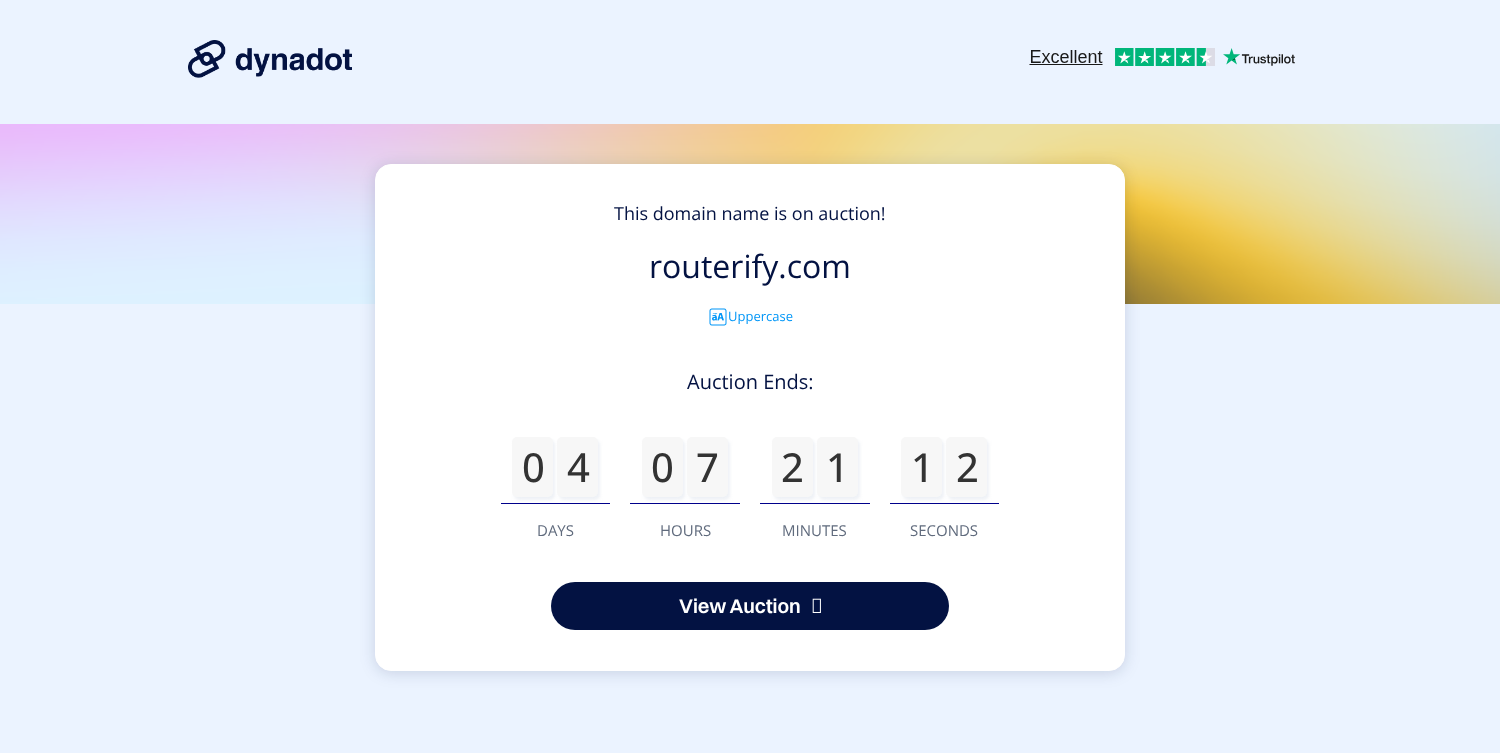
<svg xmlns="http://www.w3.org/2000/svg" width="1500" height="753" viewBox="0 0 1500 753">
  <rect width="100%" height="100%" fill="#ebf3ff"/>
  <image x="188" y="40" width="164" height="38" href="img/1.png"/>
  <image x="1029" y="48" width="266" height="18" href="img/2.png"/>
  <image x="0" y="124" width="1500" height="180" href="img/3.png"/>
  <rect x="375" y="166" width="750" height="507" rx="16" fill="#03124226" filter="blur(7.5px)"/>
  <rect x="375.5" y="164.5" width="749" height="506" rx="15.5" fill="#fff" stroke="#fff"/>
  <image x="709" y="308" width="18" height="18" href="img/4.png"/>
  <path d="M501 503h109v1H501z" fill="#00008b"/>
  <rect x="514" y="440" width="41" height="60" rx="5" fill="#eef1f6" filter="blur(1.5px)"/>
  <rect x="512" y="437" width="41" height="60" rx="5" fill="#f7f7f7"/>
  <rect x="559" y="440" width="41" height="60" rx="5" fill="#eef1f6" filter="blur(1.5px)"/>
  <rect x="557" y="437" width="41" height="60" rx="5" fill="#f7f7f7"/>
  <path d="M630 503h110v1H630z" fill="#00008b"/>
  <rect x="644" y="440" width="41" height="60" rx="5" fill="#eef1f6" filter="blur(1.5px)"/>
  <rect x="642" y="437" width="41" height="60" rx="5" fill="#f7f7f7"/>
  <rect x="689" y="440" width="41" height="60" rx="5" fill="#eef1f6" filter="blur(1.5px)"/>
  <rect x="687" y="437" width="41" height="60" rx="5" fill="#f7f7f7"/>
  <path d="M760 503h110v1H760z" fill="#00008b"/>
  <rect x="774" y="440" width="41" height="60" rx="5" fill="#eef1f6" filter="blur(1.5px)"/>
  <rect x="772" y="437" width="41" height="60" rx="5" fill="#f7f7f7"/>
  <rect x="819" y="440" width="41" height="60" rx="5" fill="#eef1f6" filter="blur(1.5px)"/>
  <rect x="817" y="437" width="41" height="60" rx="5" fill="#f7f7f7"/>
  <path d="M890 503h109v1H890z" fill="#00008b"/>
  <rect x="903" y="440" width="41" height="60" rx="5" fill="#eef1f6" filter="blur(1.5px)"/>
  <rect x="901" y="437" width="41" height="60" rx="5" fill="#f7f7f7"/>
  <rect x="948" y="440" width="41" height="60" rx="5" fill="#eef1f6" filter="blur(1.5px)"/>
  <rect x="946" y="437" width="41" height="60" rx="5" fill="#f7f7f7"/>
  <rect x="551" y="582" width="398" height="48" rx="24" fill="#031242"/>
  <image x="812" y="598" width="9" height="15" href="img/5.png"/>
  <text x="614" y="220" font-family="Open Sans" font-size="18" fill="#031242">This domain name is on auction!</text>
  <text x="649" y="278" font-family="Open Sans" font-size="32" fill="#031242">routerify.com</text>
  <text x="728" y="321" font-family="Open Sans" font-size="13" fill="#0096f7">Uppercase</text>
  <text x="687" y="389" font-family="Open Sans" font-size="20" fill="#031242">Auction Ends:</text>
  <g font-family="Open Sans" font-size="40" font-weight="500" fill="#333">
    <text x="522" y="482">0</text>
    <text x="567" y="482">4</text>
  </g>
  <text x="537" y="536" font-family="Open Sans" font-size="15" fill="#606b7d">DAYS</text>
  <g font-family="Open Sans" font-size="40" font-weight="500" fill="#333">
    <text x="651" y="482">0</text>
    <text x="696" y="482">7</text>
  </g>
  <text x="660" y="536" font-family="Open Sans" font-size="15" fill="#606b7d">HOURS</text>
  <g font-family="Open Sans" font-size="40" font-weight="500" fill="#333">
    <text x="781" y="482">2</text>
    <text x="826" y="482">1</text>
  </g>
  <text x="782" y="536" font-family="Open Sans" font-size="15" fill="#606b7d">MINUTES</text>
  <g font-family="Open Sans" font-size="40" font-weight="500" fill="#333">
    <text x="911" y="482">1</text>
    <text x="956" y="482">2</text>
  </g>
  <text x="910" y="536" font-family="Open Sans" font-size="15" fill="#606b7d">SECONDS</text>
  <text x="679" y="613" font-family="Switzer" font-size="20" font-weight="600" fill="#fff">View Auction</text>
</svg>
